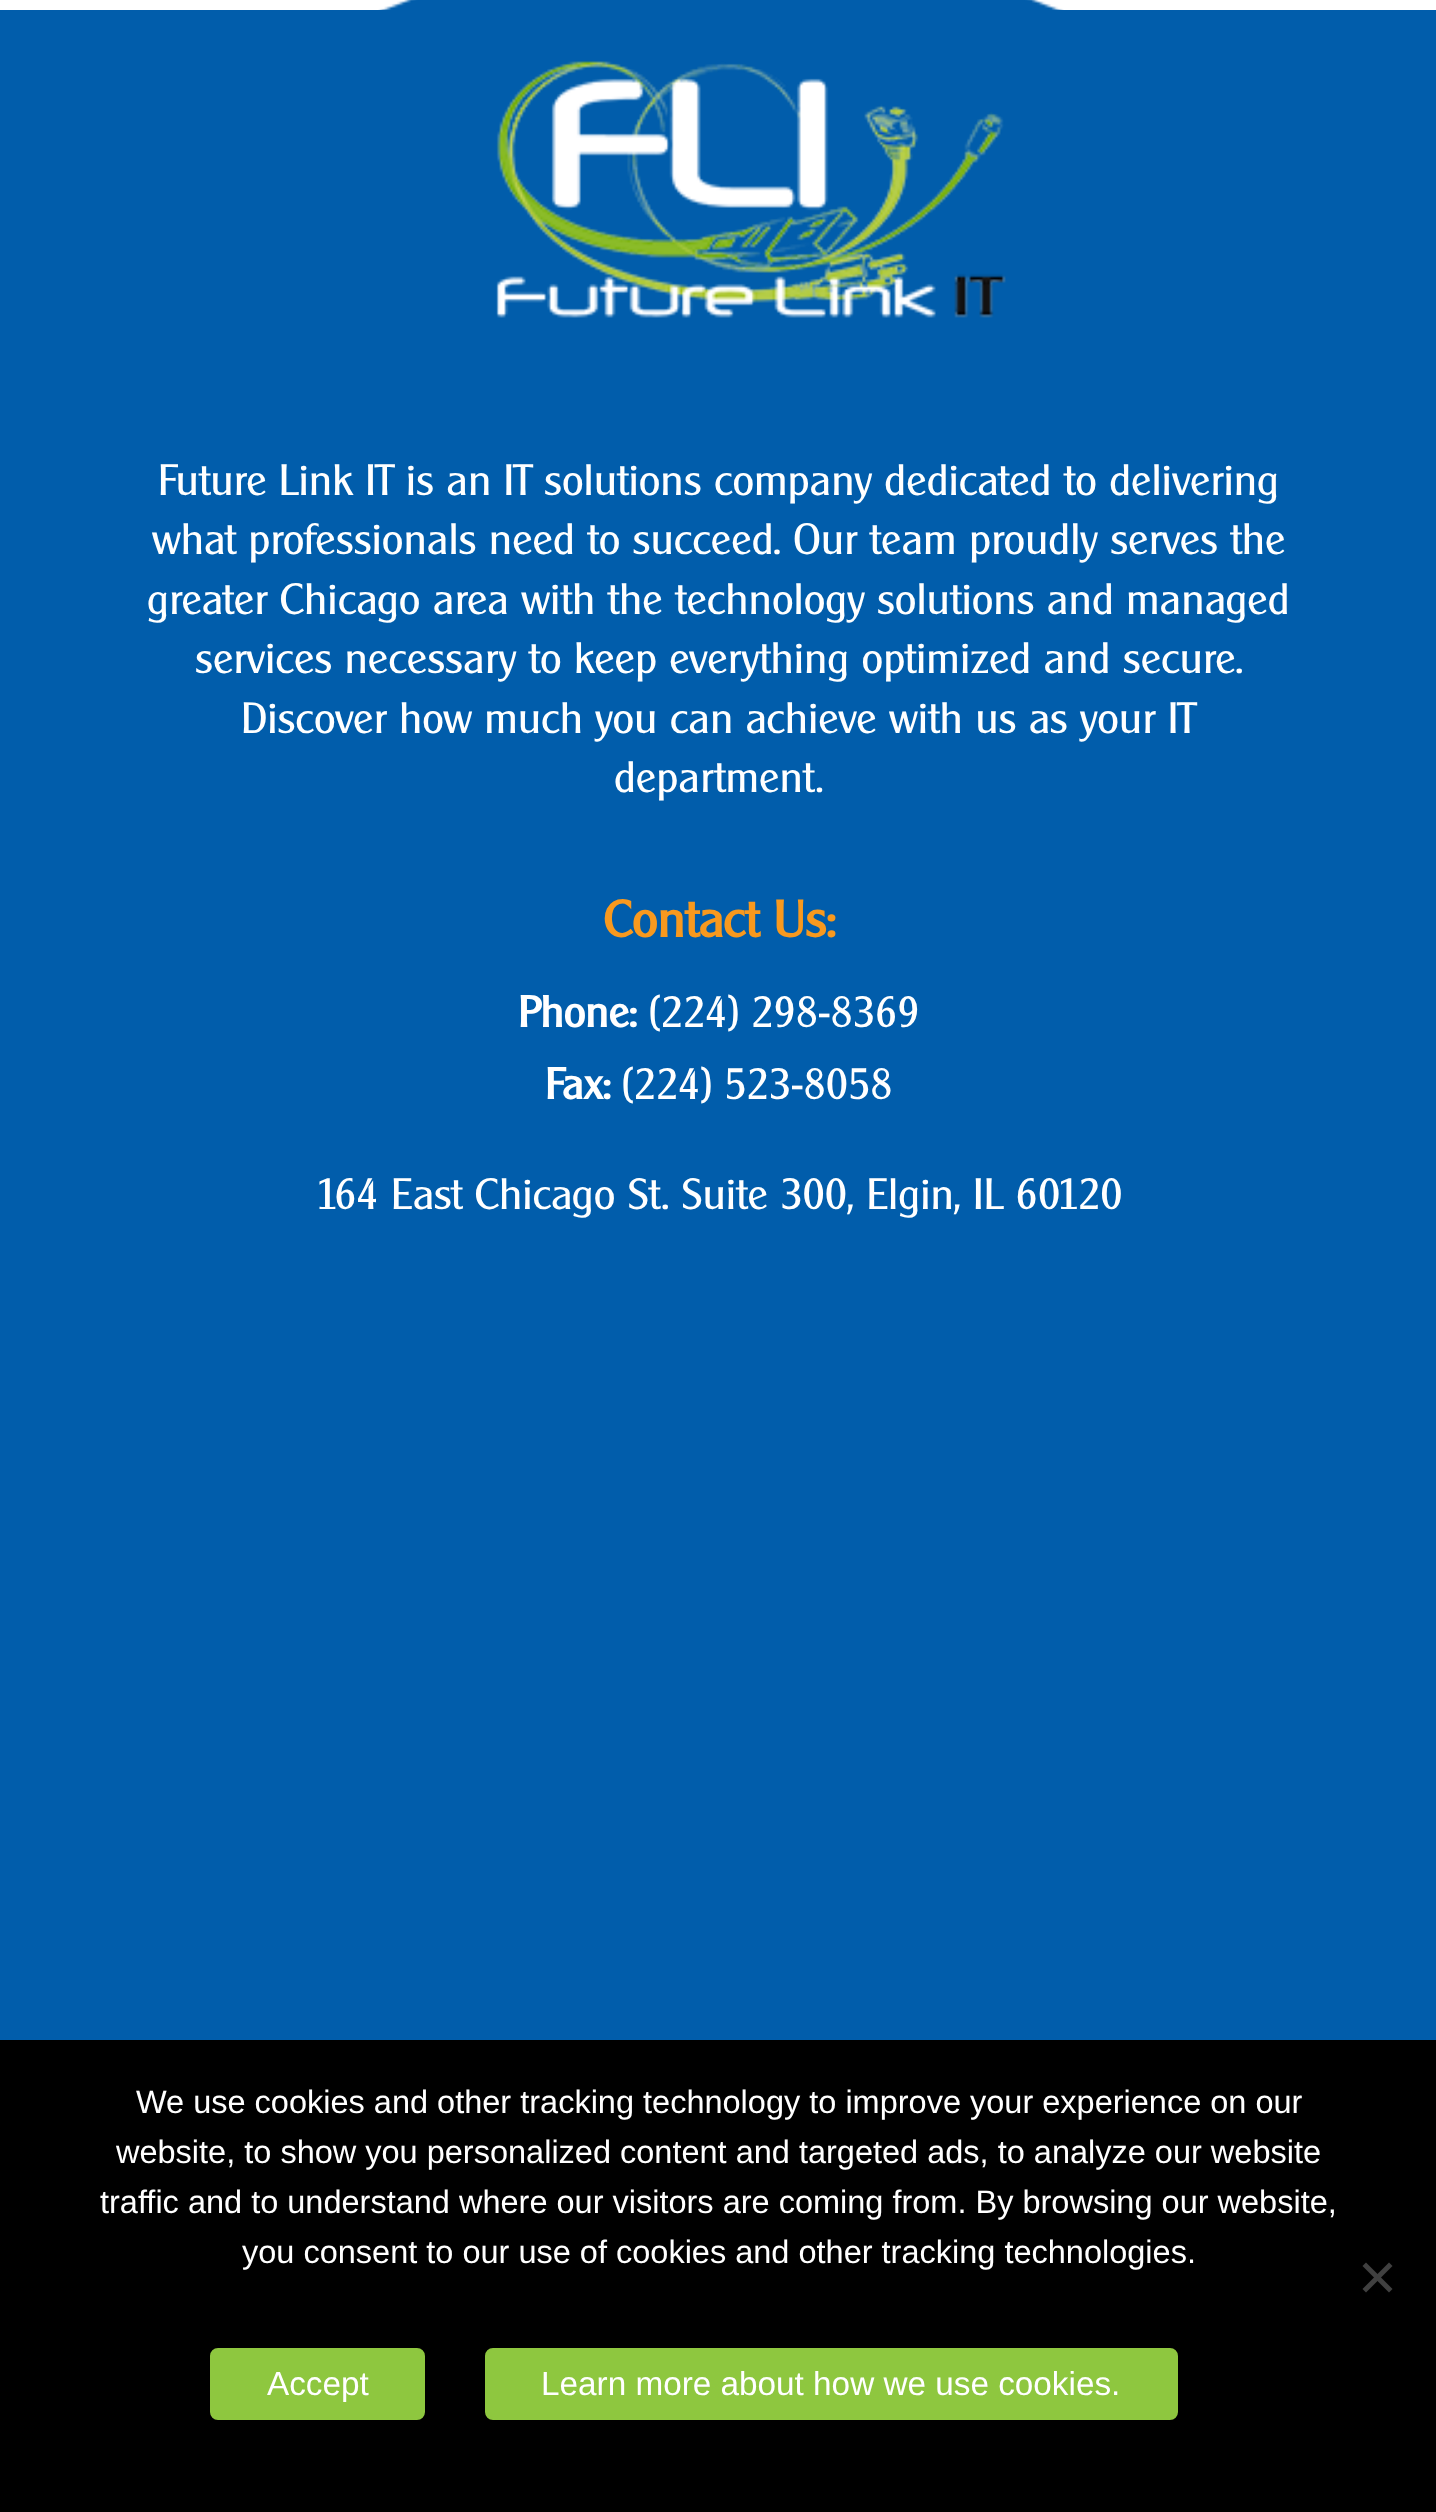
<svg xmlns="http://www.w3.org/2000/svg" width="1436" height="2512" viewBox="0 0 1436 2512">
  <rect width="100%" height="100%" fill="#fff"/>
  <image x="378" y="0" width="686" height="10" href="img/1.png"/>
  <path d="M0 10h1436v2030H0z" fill="#015dab"/>
  <image x="496" y="61" width="510" height="257" href="img/2.png"/>
  <path d="M0 2040h1436v472H0z" fill="#000"/>
  <path d="M1389 2262.5L1392.5 2266L1366 2292.5L1362.5 2289Z" fill="#404040"/>
  <path d="M1362.5 2266L1366 2262.5L1392.5 2289L1389 2292.5Z" fill="#404040"/>
  <rect x="207.5" y="2345.5" width="220" height="77" rx="10.5" fill="#8ec73f" stroke="#000" stroke-width="5"/>
  <rect x="482.5" y="2345.5" width="698" height="77" rx="10.5" fill="#8ec73f" stroke="#000" stroke-width="5"/>
  <g font-family="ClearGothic" font-size="42.5" fill="#fff">
    <text x="158" y="495">Future Link IT is an IT solutions company dedicated to delivering</text>
    <text x="152" y="554">what professionals need to succeed. Our team proudly serves the</text>
    <text x="147" y="614">greater Chicago area with the technology solutions and managed</text>
    <text x="195" y="673">services necessary to keep everything optimized and secure.</text>
    <text x="241" y="733">Discover how much you can achieve with us as your IT</text>
    <text x="614" y="792">department.</text>
  </g>
  <text x="603" y="937" font-family="ClearGothic" font-size="50" font-weight="bold" fill="#f8991e">Contact Us:</text>
  <text x="518" y="1027" font-family="ClearGothic" font-size="42.5" font-weight="bold" fill="#fff">Phone:</text>
  <text x="649" y="1027" font-family="ClearGothic" font-size="42.5" fill="#fff">(224) 298-8369</text>
  <text x="545" y="1099" font-family="ClearGothic" font-size="42.5" font-weight="bold" fill="#fff">Fax:</text>
  <g font-family="ClearGothic" font-size="42.5" fill="#fff">
    <text x="622" y="1099">(224) 523-8058</text>
    <text x="316" y="1209">164 East Chicago St. Suite 300, Elgin, IL 60120</text>
  </g>
  <g font-family="Liberation Sans" font-size="32.5" fill="#fff">
    <text x="136" y="2113">We use cookies and other tracking technology to improve your experience on our</text>
    <text x="116" y="2163">website, to show you personalized content and targeted ads, to analyze our website</text>
    <text x="100" y="2213">traffic and to understand where our visitors are coming from. By browsing our website,</text>
    <text x="242" y="2263">you consent to our use of cookies and other tracking technologies.</text>
  </g>
  <g font-family="Liberation Sans" font-size="33.3" fill="#fff">
    <text x="267" y="2395">Accept</text>
    <text x="541" y="2395">Learn more about how we use cookies.</text>
  </g>
</svg>
